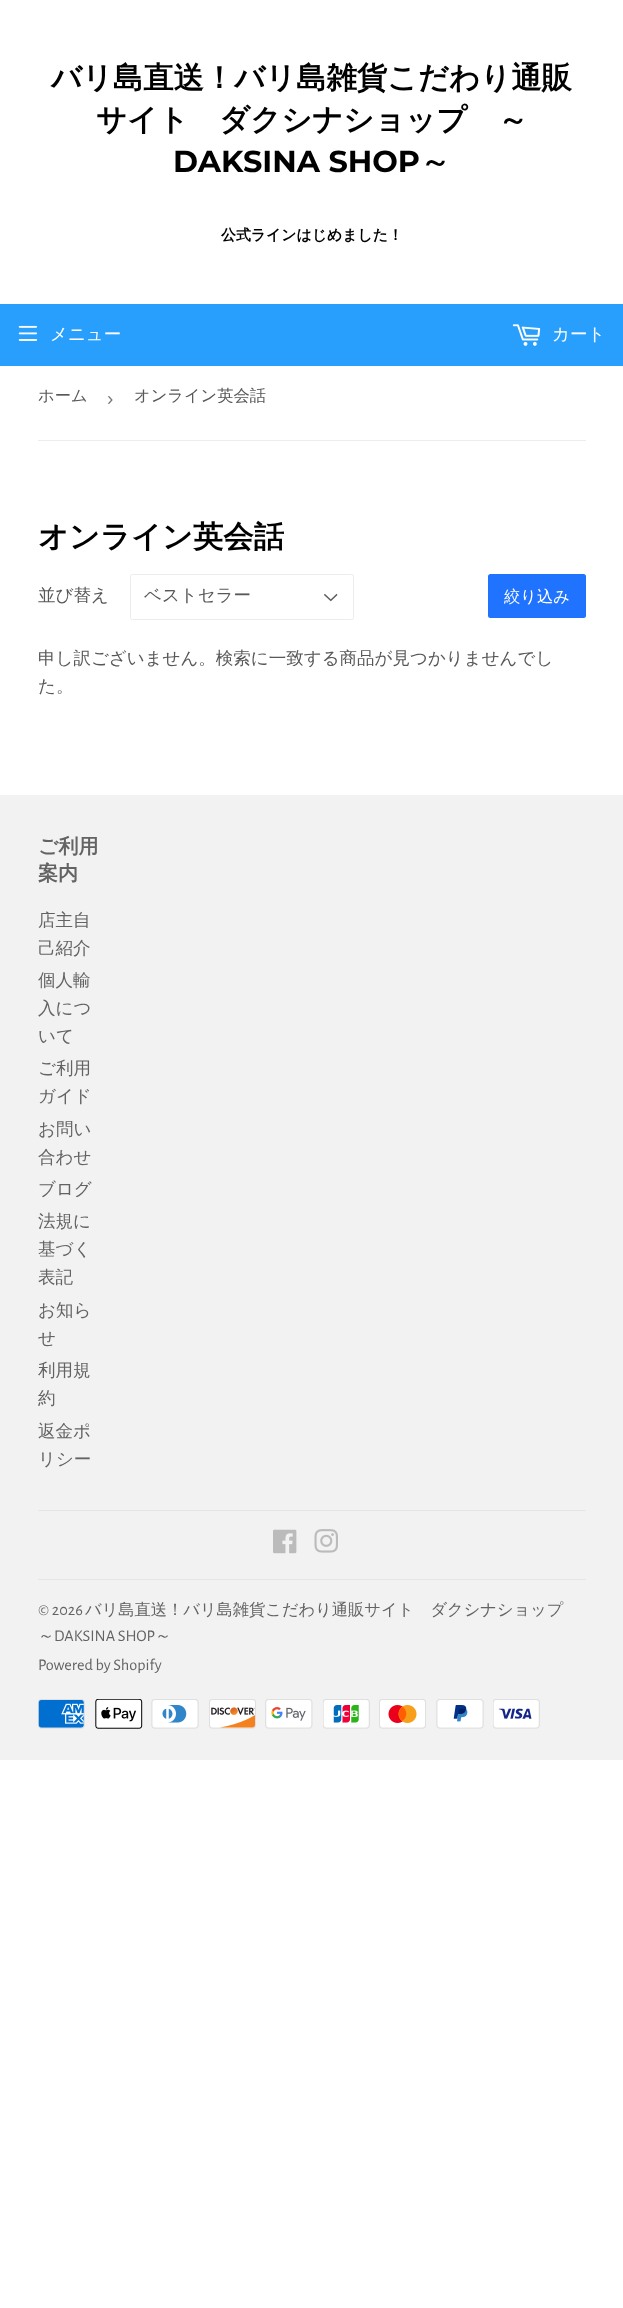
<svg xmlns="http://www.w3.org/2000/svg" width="623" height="2308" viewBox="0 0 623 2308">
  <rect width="100%" height="100%" fill="#fff"/>
  <path d="M0 304h623v62H0z" fill="#289efd"/>
  <image x="18" y="325" width="20" height="16" href="img/1.png"/>
  <image x="512" y="324" width="29" height="22" href="img/2.png"/>
  <path d="M38 440h548v1H38z" fill="#ececec"/>
  <image x="324" y="593" width="14" height="9" href="img/3.png"/>
  <rect x="130.5" y="574.5" width="223" height="45" rx="2" fill="none" stroke="#ececec"/>
  <rect x="488" y="574" width="98" height="44" rx="2.5" fill="#2073ff"/>
  <path d="M0 795h623v965H0z" fill="#f2f2f2"/>
  <path d="M38 1510h548v1H38z" fill="#e5e5e5"/>
  <image x="273" y="1529" width="24" height="25" href="img/4.png"/>
  <image x="314" y="1529" width="24" height="24" href="img/5.png"/>
  <path d="M38 1579h548v1H38z" fill="#e5e5e5"/>
  <image x="38" y="1699" width="47" height="30" href="img/6.png"/>
  <image x="95" y="1699" width="48" height="30" href="img/7.png"/>
  <image x="151" y="1699" width="48" height="30" href="img/8.png"/>
  <image x="209" y="1699" width="47" height="30" href="img/9.png"/>
  <image x="265" y="1699" width="48" height="30" href="img/10.png"/>
  <image x="323" y="1699" width="47" height="30" href="img/11.png"/>
  <image x="379" y="1699" width="47" height="30" href="img/12.png"/>
  <image x="436" y="1699" width="48" height="30" href="img/13.png"/>
  <image x="493" y="1699" width="47" height="30" href="img/14.png"/>
  <g font-family="WenQuanYi Zen Hei" font-size="30.3" font-weight="bold" fill="#000">
    <text x="51" y="88">バリ島直送！バリ島雑貨こだわり通販</text>
    <text x="96" y="130">サイト　ダクシナショップ　～</text>
  </g>
  <text x="173" y="172" font-family="Montserrat" font-size="30.3" font-weight="bold" fill="#000">DAKSINA SHOP</text>
  <text x="420" y="172" font-family="WenQuanYi Zen Hei" font-size="30.3" font-weight="bold" fill="#000">～</text>
  <text x="221" y="240" font-family="WenQuanYi Zen Hei" font-size="14.9" font-weight="bold" fill="#000">公式ラインはじめました！</text>
  <g font-family="WenQuanYi Zen Hei" font-size="17.5" font-weight="500" fill="#fff">
    <text x="50" y="340">メニュー</text>
    <text x="552" y="340">カート</text>
  </g>
  <text x="38" y="401" font-family="WenQuanYi Zen Hei" font-size="16.25" font-weight="500" fill="#585858">ホーム</text>
  <text x="107" y="405" font-family="Liberation Sans" font-size="19" fill="#767676">›</text>
  <text x="134" y="401" font-family="WenQuanYi Zen Hei" font-size="16.25" font-weight="500" fill="#585858">オンライン英会話</text>
  <text x="38" y="547" font-family="WenQuanYi Zen Hei" font-size="30.3" font-weight="bold" fill="#000">オンライン英会話</text>
  <g font-family="WenQuanYi Zen Hei" font-size="17.5" font-weight="500" fill="#585858">
    <text x="38" y="601">並び替え</text>
    <text x="144" y="601">ベストセラー</text>
  </g>
  <text x="504" y="602" font-family="WenQuanYi Zen Hei" font-size="16.25" font-weight="500" fill="#fff">絞り込み</text>
  <g font-family="WenQuanYi Zen Hei" font-size="17.5" font-weight="500" fill="#585858">
    <text x="38" y="664">申し訳ございません。検索に一致する商品が見つかりませんでし</text>
    <text x="38" y="692">た。</text>
  </g>
  <g font-family="WenQuanYi Zen Hei" font-size="20" font-weight="bold" fill="#636363">
    <text x="38" y="853">ご利用</text>
    <text x="38" y="880">案内</text>
  </g>
  <g font-family="WenQuanYi Zen Hei" font-size="17.5" font-weight="500" fill="#636363">
    <text x="38" y="926">店主自</text>
    <text x="38" y="954">己紹介</text>
    <text x="38" y="986">個人輸</text>
    <text x="38" y="1014">入につ</text>
    <text x="38" y="1042">いて</text>
    <text x="38" y="1074">ご利用</text>
    <text x="38" y="1102">ガイド</text>
    <text x="38" y="1135">お問い</text>
    <text x="38" y="1163">合わせ</text>
    <text x="38" y="1195">ブログ</text>
    <text x="38" y="1227">法規に</text>
    <text x="38" y="1255">基づく</text>
    <text x="38" y="1283">表記</text>
    <text x="38" y="1316">お知ら</text>
    <text x="38" y="1344">せ</text>
    <text x="38" y="1376">利用規</text>
    <text x="38" y="1404">約</text>
    <text x="38" y="1437">返金ポ</text>
    <text x="38" y="1465">リシー</text>
  </g>
  <text x="38" y="1615" font-family="Alegreya Sans" font-size="16.25" fill="#636363">© 2026</text>
  <g font-family="WenQuanYi Zen Hei" font-size="16.25" font-weight="500" fill="#636363">
    <text x="85" y="1615">バリ島直送！バリ島雑貨こだわり通販サイト　ダクシナショップ</text>
    <text x="38" y="1641">～</text>
  </g>
  <text x="54" y="1641" font-family="Alegreya Sans" font-size="16.25" fill="#636363">DAKSINA SHOP</text>
  <text x="155" y="1641" font-family="WenQuanYi Zen Hei" font-size="16.25" font-weight="500" fill="#636363">～</text>
  <text x="38" y="1670" font-family="Alegreya Sans" font-size="16.25" fill="#636363">Powered by Shopify</text>
</svg>
